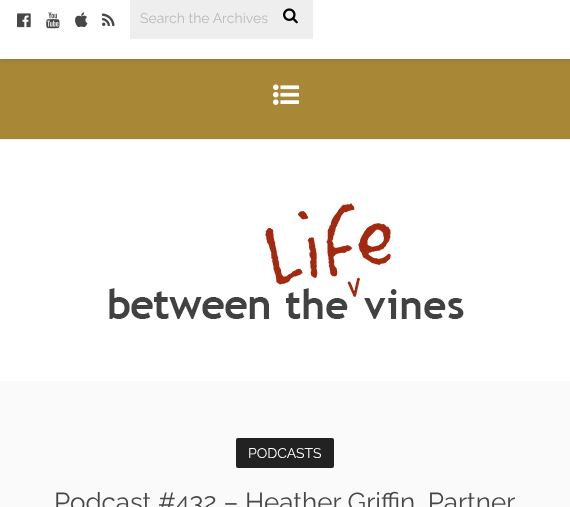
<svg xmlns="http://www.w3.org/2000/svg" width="570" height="507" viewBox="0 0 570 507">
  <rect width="100%" height="100%" fill="#fff"/>
  <path d="M0 59h570v80H0z" fill="#a88837"/>
  <path d="M0 1h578v59H0z" fill="#0000001c" filter="blur(2.5px)"/>
  <path d="M0 0h570v59H0z" fill="#fff"/>
  <image x="17" y="13" width="14" height="15" href="img/1.png"/>
  <image x="46" y="12" width="14" height="17" href="img/2.png"/>
  <image x="75" y="12" width="13" height="16" href="img/3.png"/>
  <image x="102" y="13" width="13" height="13" href="img/4.png"/>
  <path d="M130 0h183v39H130z" fill="#eee"/>
  <image x="283" y="8" width="15" height="16" href="img/5.png"/>
  <image x="273" y="84" width="26" height="21" href="img/6.png"/>
  <path d="M0 139h570v1H0z" fill="#eee"/>
  <image x="109" y="203" width="355" height="116" href="img/7.png"/>
  <path d="M0 381h570v126H0z" fill="#fafafa"/>
  <rect x="236" y="438" width="98" height="30" rx="2" fill="#222"/>
  <text x="140" y="23" font-family="Raleway" font-size="14" fill="#bbb">Search the Archives</text>
  <text x="248" y="458" font-family="Raleway" font-size="14" fill="#fff">PODCASTS</text>
  <text x="54" y="511" font-family="Raleway" font-size="26" fill="#474747">Podcast #432 – Heather Griffin, Partner</text>
</svg>
